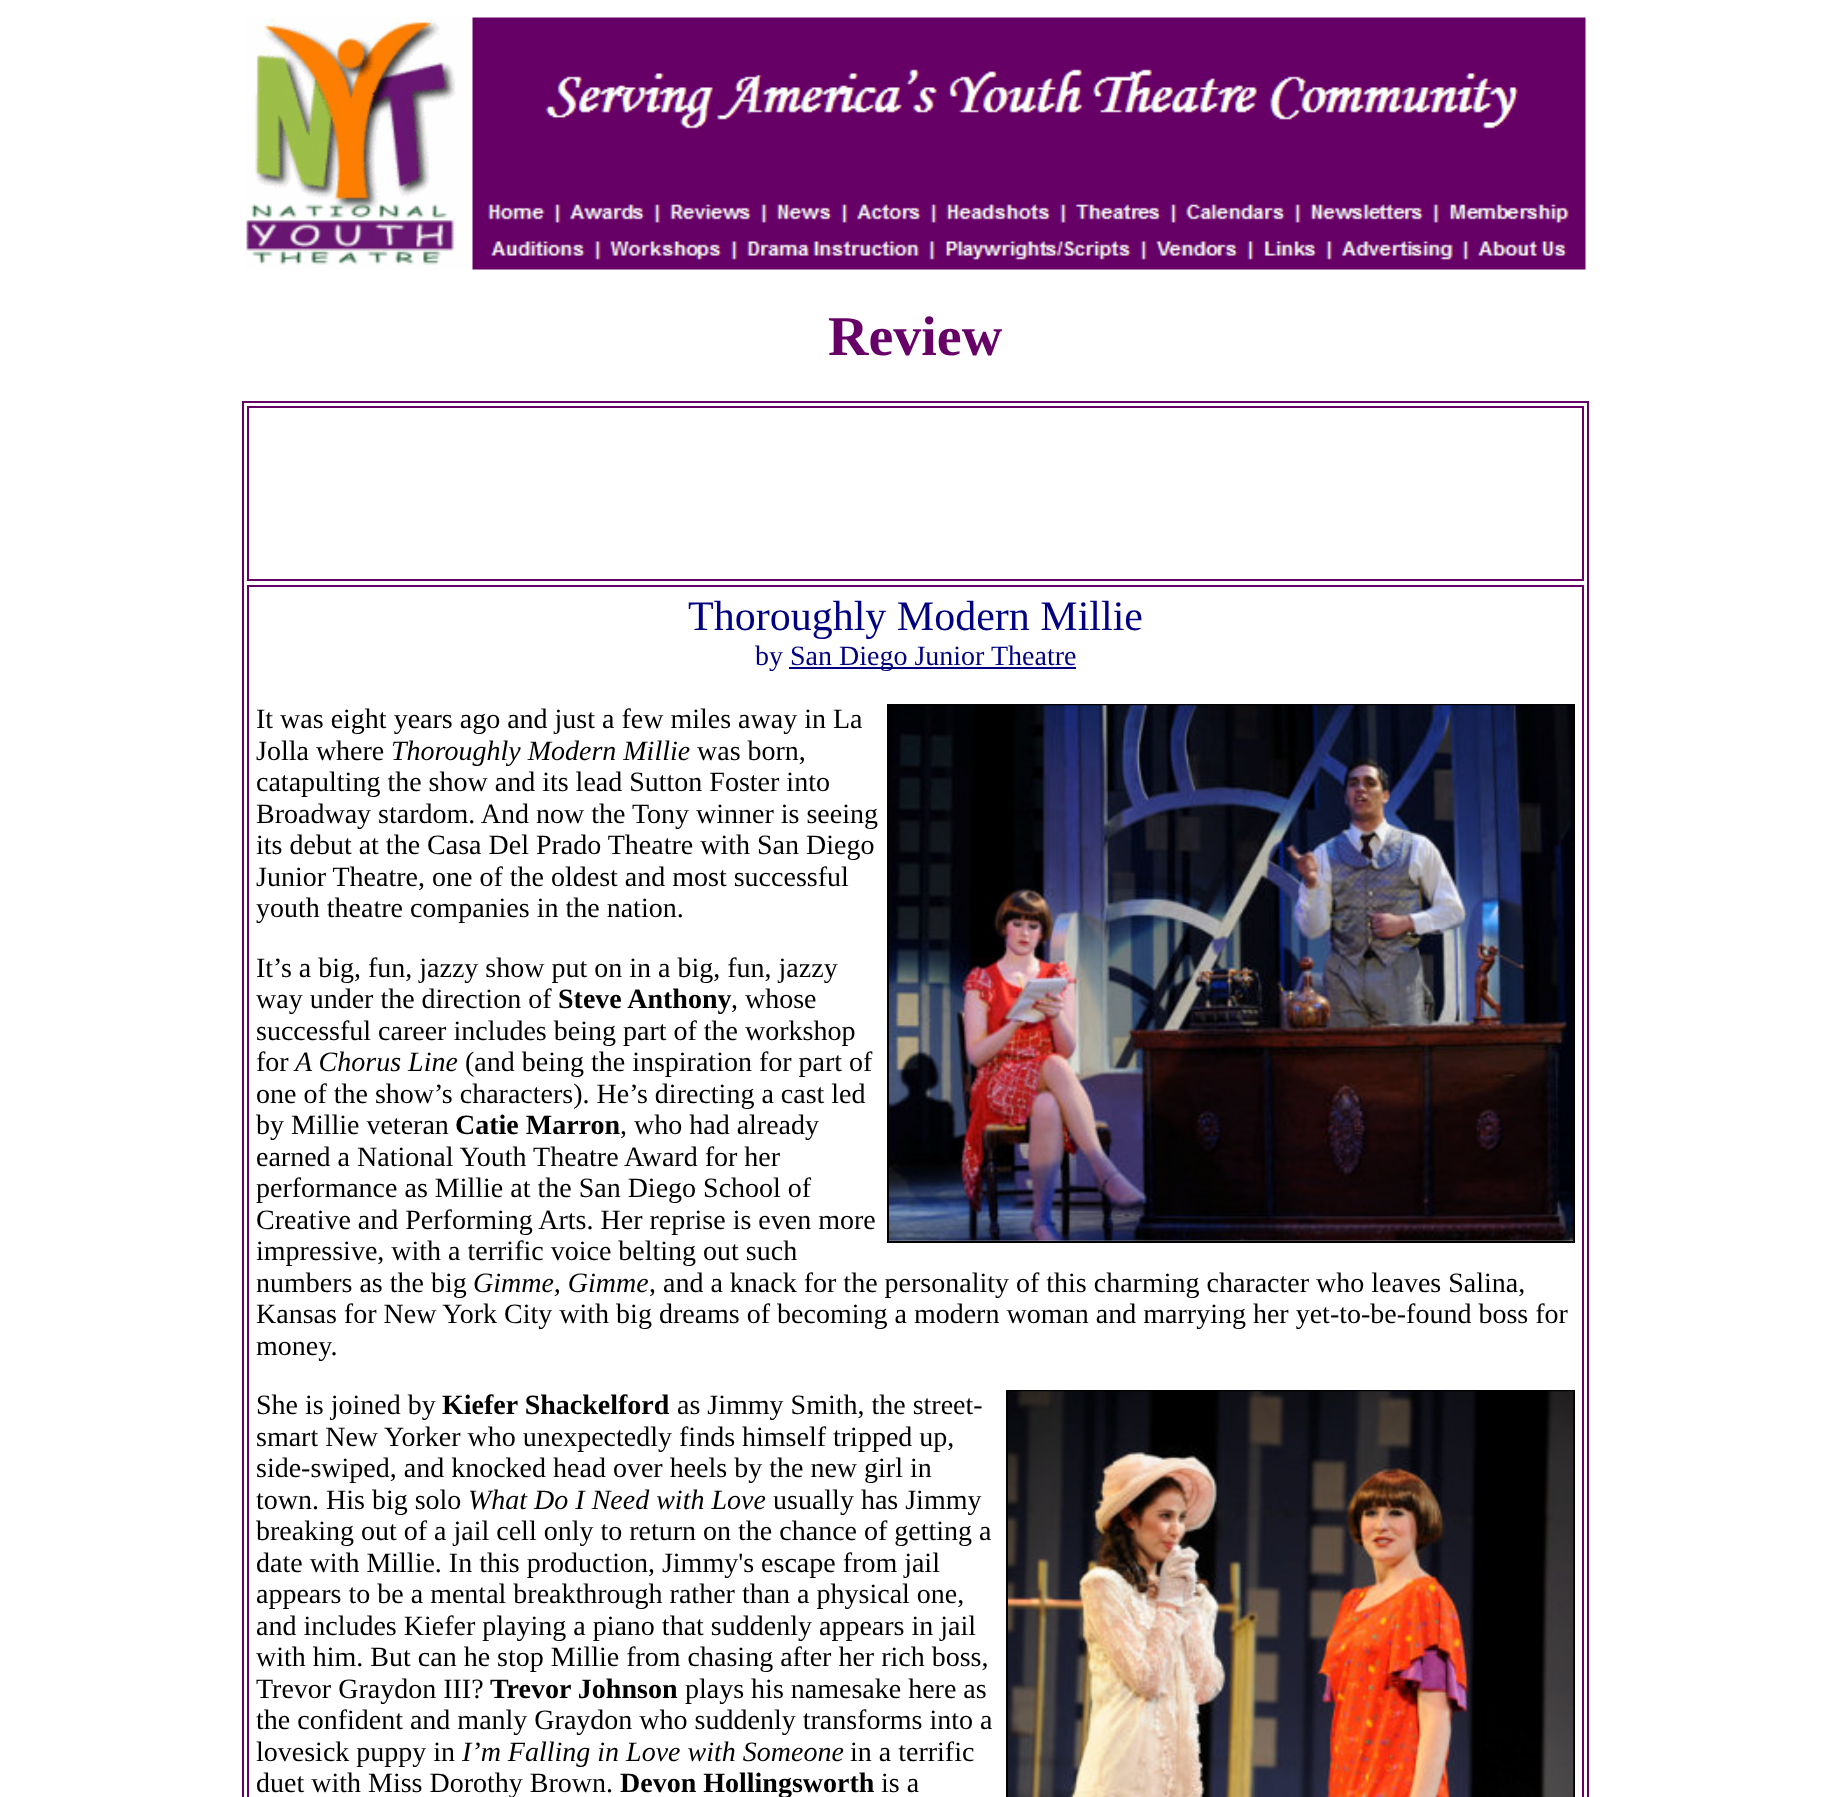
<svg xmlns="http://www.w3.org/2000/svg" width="1830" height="1797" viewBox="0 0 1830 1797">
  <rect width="100%" height="100%" fill="#fff"/>
  <image x="244" y="17" width="1342" height="253" href="img/1.png"/>
  <path d="M243 402h1345v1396H243z" fill="none" stroke="#606" stroke-width="2"/>
  <path d="M248 407h1335v173H248z" fill="none" stroke="#606" stroke-width="2"/>
  <path d="M248 586h1335v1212H248z" fill="none" stroke="#606" stroke-width="2"/>
  <path d="M789 667h287v2H789z" fill="#000080"/>
  <path d="M888 705h686v537H888z" fill="none" stroke="#000" stroke-width="2"/>
  <image x="889" y="705" width="685" height="536" href="img/2.png"/>
  <path d="M1007 1391h567v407H1007z" fill="none" stroke="#000" stroke-width="2"/>
  <image x="1008" y="1391" width="566" height="406" href="img/3.png"/>
  <text x="828" y="355" font-family="Liberation Serif" font-size="56" font-weight="bold" fill="#606">Review</text>
  <text x="688" y="630" font-family="Liberation Serif" font-size="42" fill="#000080">Thoroughly Modern Millie</text>
  <g font-family="Liberation Serif" font-size="28" fill="#000080">
    <text x="755" y="665">by</text>
    <text x="790" y="665">San Diego Junior Theatre</text>
  </g>
  <g font-family="Liberation Serif" font-size="28" fill="#000">
    <text x="256" y="728">It was eight years ago and just a few miles away in La</text>
    <text x="256" y="760">Jolla where</text>
  </g>
  <text x="391" y="760" font-family="Liberation Serif" font-size="28" font-style="italic" fill="#000">Thoroughly Modern Millie</text>
  <g font-family="Liberation Serif" font-size="28" fill="#000">
    <text x="697" y="760">was born,</text>
    <text x="256" y="791">catapulting the show and its lead Sutton Foster into</text>
    <text x="256" y="823">Broadway stardom. And now the Tony winner is seeing</text>
    <text x="256" y="854">its debut at the Casa Del Prado Theatre with San Diego</text>
    <text x="256" y="886">Junior Theatre, one of the oldest and most successful</text>
    <text x="256" y="917">youth theatre companies in the nation.</text>
    <text x="256" y="977">It’s a big, fun, jazzy show put on in a big, fun, jazzy</text>
    <text x="256" y="1008">way under the direction of</text>
  </g>
  <text x="558" y="1008" font-family="Liberation Serif" font-size="28" font-weight="bold" fill="#000">Steve Anthony</text>
  <g font-family="Liberation Serif" font-size="28" fill="#000">
    <text x="731" y="1008">, whose</text>
    <text x="256" y="1040">successful career includes being part of the workshop</text>
    <text x="256" y="1071">for</text>
  </g>
  <text x="295" y="1071" font-family="Liberation Serif" font-size="28" font-style="italic" fill="#000">A Chorus Line</text>
  <g font-family="Liberation Serif" font-size="28" fill="#000">
    <text x="465" y="1071">(and being the inspiration for part of</text>
    <text x="256" y="1103">one of the show’s characters). He’s directing a cast led</text>
    <text x="256" y="1134">by Millie veteran</text>
  </g>
  <text x="455" y="1134" font-family="Liberation Serif" font-size="28" font-weight="bold" fill="#000">Catie Marron</text>
  <g font-family="Liberation Serif" font-size="28" fill="#000">
    <text x="620" y="1134">, who had already</text>
    <text x="256" y="1166">earned a National Youth Theatre Award for her</text>
    <text x="256" y="1197">performance as Millie at the San Diego School of</text>
    <text x="256" y="1229">Creative and Performing Arts. Her reprise is even more</text>
    <text x="256" y="1260">impressive, with a terrific voice belting out such</text>
    <text x="256" y="1292">numbers as the big</text>
  </g>
  <text x="473" y="1292" font-family="Liberation Serif" font-size="28" font-style="italic" fill="#000">Gimme, Gimme</text>
  <g font-family="Liberation Serif" font-size="28" fill="#000">
    <text x="649" y="1292">, and a knack for the personality of this charming character who leaves Salina,</text>
    <text x="256" y="1323">Kansas for New York City with big dreams of becoming a modern woman and marrying her yet-to-be-found boss for</text>
    <text x="256" y="1355">money.</text>
    <text x="256" y="1414">She is joined by</text>
  </g>
  <text x="442" y="1414" font-family="Liberation Serif" font-size="28" font-weight="bold" fill="#000">Kiefer Shackelford</text>
  <g font-family="Liberation Serif" font-size="28" fill="#000">
    <text x="677" y="1414">as Jimmy Smith, the street-</text>
    <text x="256" y="1446">smart New Yorker who unexpectedly finds himself tripped up,</text>
    <text x="256" y="1477">side-swiped, and knocked head over heels by the new girl in</text>
    <text x="256" y="1509">town. His big solo</text>
  </g>
  <text x="468" y="1509" font-family="Liberation Serif" font-size="28" font-style="italic" fill="#000">What Do I Need with Love</text>
  <g font-family="Liberation Serif" font-size="28" fill="#000">
    <text x="773" y="1509">usually has Jimmy</text>
    <text x="256" y="1540">breaking out of a jail cell only to return on the chance of getting a</text>
    <text x="256" y="1572">date with Millie. In this production, Jimmy's escape from jail</text>
    <text x="256" y="1603">appears to be a mental breakthrough rather than a physical one,</text>
    <text x="256" y="1635">and includes Kiefer playing a piano that suddenly appears in jail</text>
    <text x="256" y="1666">with him. But can he stop Millie from chasing after her rich boss,</text>
    <text x="256" y="1698">Trevor Graydon III?</text>
  </g>
  <text x="490" y="1698" font-family="Liberation Serif" font-size="28" font-weight="bold" fill="#000">Trevor Johnson</text>
  <g font-family="Liberation Serif" font-size="28" fill="#000">
    <text x="685" y="1698">plays his namesake here as</text>
    <text x="256" y="1729">the confident and manly Graydon who suddenly transforms into a</text>
    <text x="256" y="1761">lovesick puppy in</text>
  </g>
  <text x="462" y="1761" font-family="Liberation Serif" font-size="28" font-style="italic" fill="#000">I’m Falling in Love with Someone</text>
  <g font-family="Liberation Serif" font-size="28" fill="#000">
    <text x="850" y="1761">in a terrific</text>
    <text x="256" y="1792">duet with Miss Dorothy Brown.</text>
  </g>
  <text x="620" y="1792" font-family="Liberation Serif" font-size="28" font-weight="bold" fill="#000">Devon Hollingsworth</text>
  <text x="881" y="1792" font-family="Liberation Serif" font-size="28" fill="#000">is a</text>
</svg>
